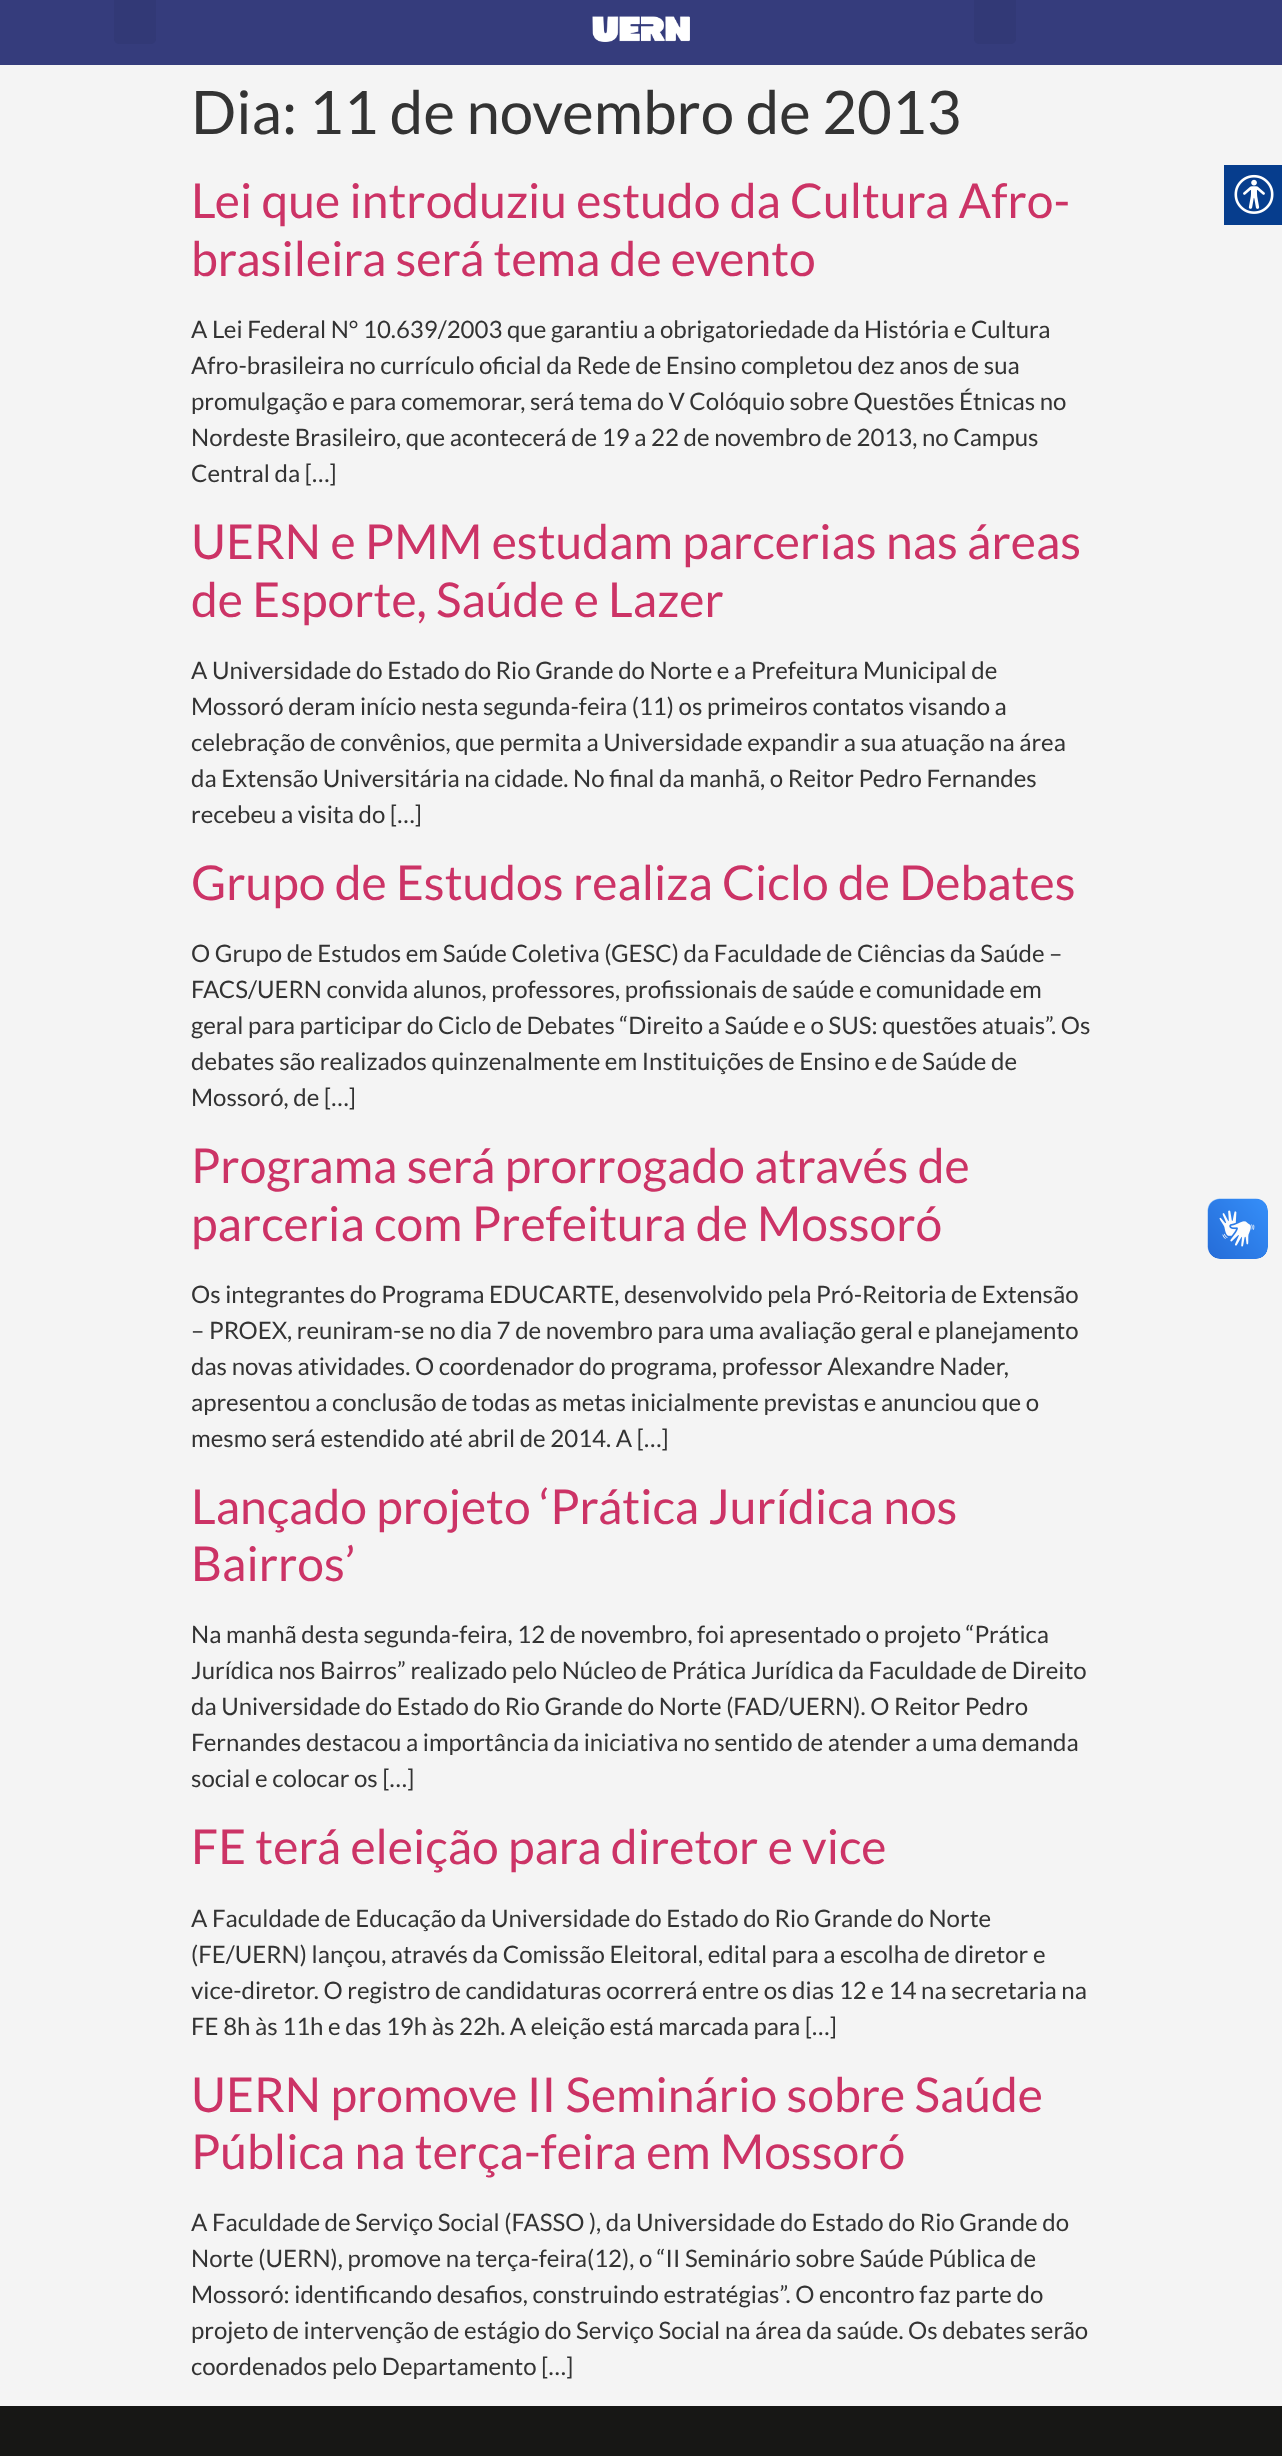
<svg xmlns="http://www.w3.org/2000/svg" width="1282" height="2456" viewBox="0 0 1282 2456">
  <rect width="100%" height="100%" fill="#f4f4f4"/>
  <path d="M0 0h1282v65H0z" fill="#353c7c"/>
  <rect x="114" y="-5" width="42" height="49" rx="5" fill="#323976"/>
  <image x="592" y="16" width="98" height="26" href="img/1.png"/>
  <rect x="974" y="-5" width="42" height="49" rx="5" fill="#323976"/>
  <path d="M1224 165h58v60H1224z" fill="#063d8d"/>
  <image x="1234" y="174" width="40" height="40" href="img/2.png"/>
  <image x="1207" y="1198" width="61" height="61" href="img/3.png"/>
  <image x="1208" y="1199" width="60" height="60" href="img/4.png"/>
  <path d="M0 2406h1282v50H0z" fill="#171715"/>
  <text x="191" y="134" font-family="Lato" font-size="60" fill="#333">Dia: 11 de novembro de 2013</text>
  <g font-family="Lato" font-size="48" fill="#c36">
    <text x="191" y="218">Lei que introduziu estudo da Cultura Afro-</text>
    <text x="191" y="276">brasileira será tema de evento</text>
  </g>
  <g font-family="Lato" font-size="24" fill="#333">
    <text x="191" y="338">A Lei Federal N° 10.639/2003 que garantiu a obrigatoriedade da História e Cultura</text>
    <text x="191" y="374">Afro-brasileira no currículo oficial da Rede de Ensino completou dez anos de sua</text>
    <text x="191" y="410">promulgação e para comemorar, será tema do V Colóquio sobre Questões Étnicas no</text>
    <text x="191" y="446">Nordeste Brasileiro, que acontecerá de 19 a 22 de novembro de 2013, no Campus</text>
    <text x="191" y="482">Central da […]</text>
  </g>
  <g font-family="Lato" font-size="48" fill="#c36">
    <text x="191" y="559">UERN e PMM estudam parcerias nas áreas</text>
    <text x="191" y="617">de Esporte, Saúde e Lazer</text>
  </g>
  <g font-family="Lato" font-size="24" fill="#333">
    <text x="191" y="679">A Universidade do Estado do Rio Grande do Norte e a Prefeitura Municipal de</text>
    <text x="191" y="715">Mossoró deram início nesta segunda-feira (11) os primeiros contatos visando a</text>
    <text x="191" y="751">celebração de convênios, que permita a Universidade expandir a sua atuação na área</text>
    <text x="191" y="787">da Extensão Universitária na cidade. No final da manhã, o Reitor Pedro Fernandes</text>
    <text x="191" y="823">recebeu a visita do […]</text>
  </g>
  <text x="191" y="900" font-family="Lato" font-size="48" fill="#c36">Grupo de Estudos realiza Ciclo de Debates</text>
  <g font-family="Lato" font-size="24" fill="#333">
    <text x="191" y="962">O Grupo de Estudos em Saúde Coletiva (GESC) da Faculdade de Ciências da Saúde –</text>
    <text x="191" y="998">FACS/UERN convida alunos, professores, profissionais de saúde e comunidade em</text>
    <text x="191" y="1034">geral para participar do Ciclo de Debates “Direito a Saúde e o SUS: questões atuais”. Os</text>
    <text x="191" y="1070">debates são realizados quinzenalmente em Instituições de Ensino e de Saúde de</text>
    <text x="191" y="1106">Mossoró, de […]</text>
  </g>
  <g font-family="Lato" font-size="48" fill="#c36">
    <text x="191" y="1183">Programa será prorrogado através de</text>
    <text x="191" y="1241">parceria com Prefeitura de Mossoró</text>
  </g>
  <g font-family="Lato" font-size="24" fill="#333">
    <text x="191" y="1303">Os integrantes do Programa EDUCARTE, desenvolvido pela Pró-Reitoria de Extensão</text>
    <text x="191" y="1339">– PROEX, reuniram-se no dia 7 de novembro para uma avaliação geral e planejamento</text>
    <text x="191" y="1375">das novas atividades. O coordenador do programa, professor Alexandre Nader,</text>
    <text x="191" y="1411">apresentou a conclusão de todas as metas inicialmente previstas e anunciou que o</text>
    <text x="191" y="1447">mesmo será estendido até abril de 2014. A […]</text>
  </g>
  <g font-family="Lato" font-size="48" fill="#c36">
    <text x="191" y="1524">Lançado projeto ‘Prática Jurídica nos</text>
    <text x="191" y="1581">Bairros’</text>
  </g>
  <g font-family="Lato" font-size="24" fill="#333">
    <text x="191" y="1643">Na manhã desta segunda-feira, 12 de novembro, foi apresentado o projeto “Prática</text>
    <text x="191" y="1679">Jurídica nos Bairros” realizado pelo Núcleo de Prática Jurídica da Faculdade de Direito</text>
    <text x="191" y="1715">da Universidade do Estado do Rio Grande do Norte (FAD/UERN). O Reitor Pedro</text>
    <text x="191" y="1751">Fernandes destacou a importância da iniciativa no sentido de atender a uma demanda</text>
    <text x="191" y="1787">social e colocar os […]</text>
  </g>
  <text x="191" y="1864" font-family="Lato" font-size="48" fill="#c36">FE terá eleição para diretor e vice</text>
  <g font-family="Lato" font-size="24" fill="#333">
    <text x="191" y="1927">A Faculdade de Educação da Universidade do Estado do Rio Grande do Norte</text>
    <text x="191" y="1963">(FE/UERN) lançou, através da Comissão Eleitoral, edital para a escolha de diretor e</text>
    <text x="191" y="1999">vice-diretor. O registro de candidaturas ocorrerá entre os dias 12 e 14 na secretaria na</text>
    <text x="191" y="2035">FE 8h às 11h e das 19h às 22h. A eleição está marcada para […]</text>
  </g>
  <g font-family="Lato" font-size="48" fill="#c36">
    <text x="191" y="2112">UERN promove II Seminário sobre Saúde</text>
    <text x="191" y="2169">Pública na terça-feira em Mossoró</text>
  </g>
  <g font-family="Lato" font-size="24" fill="#333">
    <text x="191" y="2231">A Faculdade de Serviço Social (FASSO ), da Universidade do Estado do Rio Grande do</text>
    <text x="191" y="2267">Norte (UERN), promove na terça-feira(12), o “II Seminário sobre Saúde Pública de</text>
    <text x="191" y="2303">Mossoró: identificando desafios, construindo estratégias”. O encontro faz parte do</text>
    <text x="191" y="2339">projeto de intervenção de estágio do Serviço Social na área da saúde. Os debates serão</text>
    <text x="191" y="2375">coordenados pelo Departamento […]</text>
  </g>
</svg>
